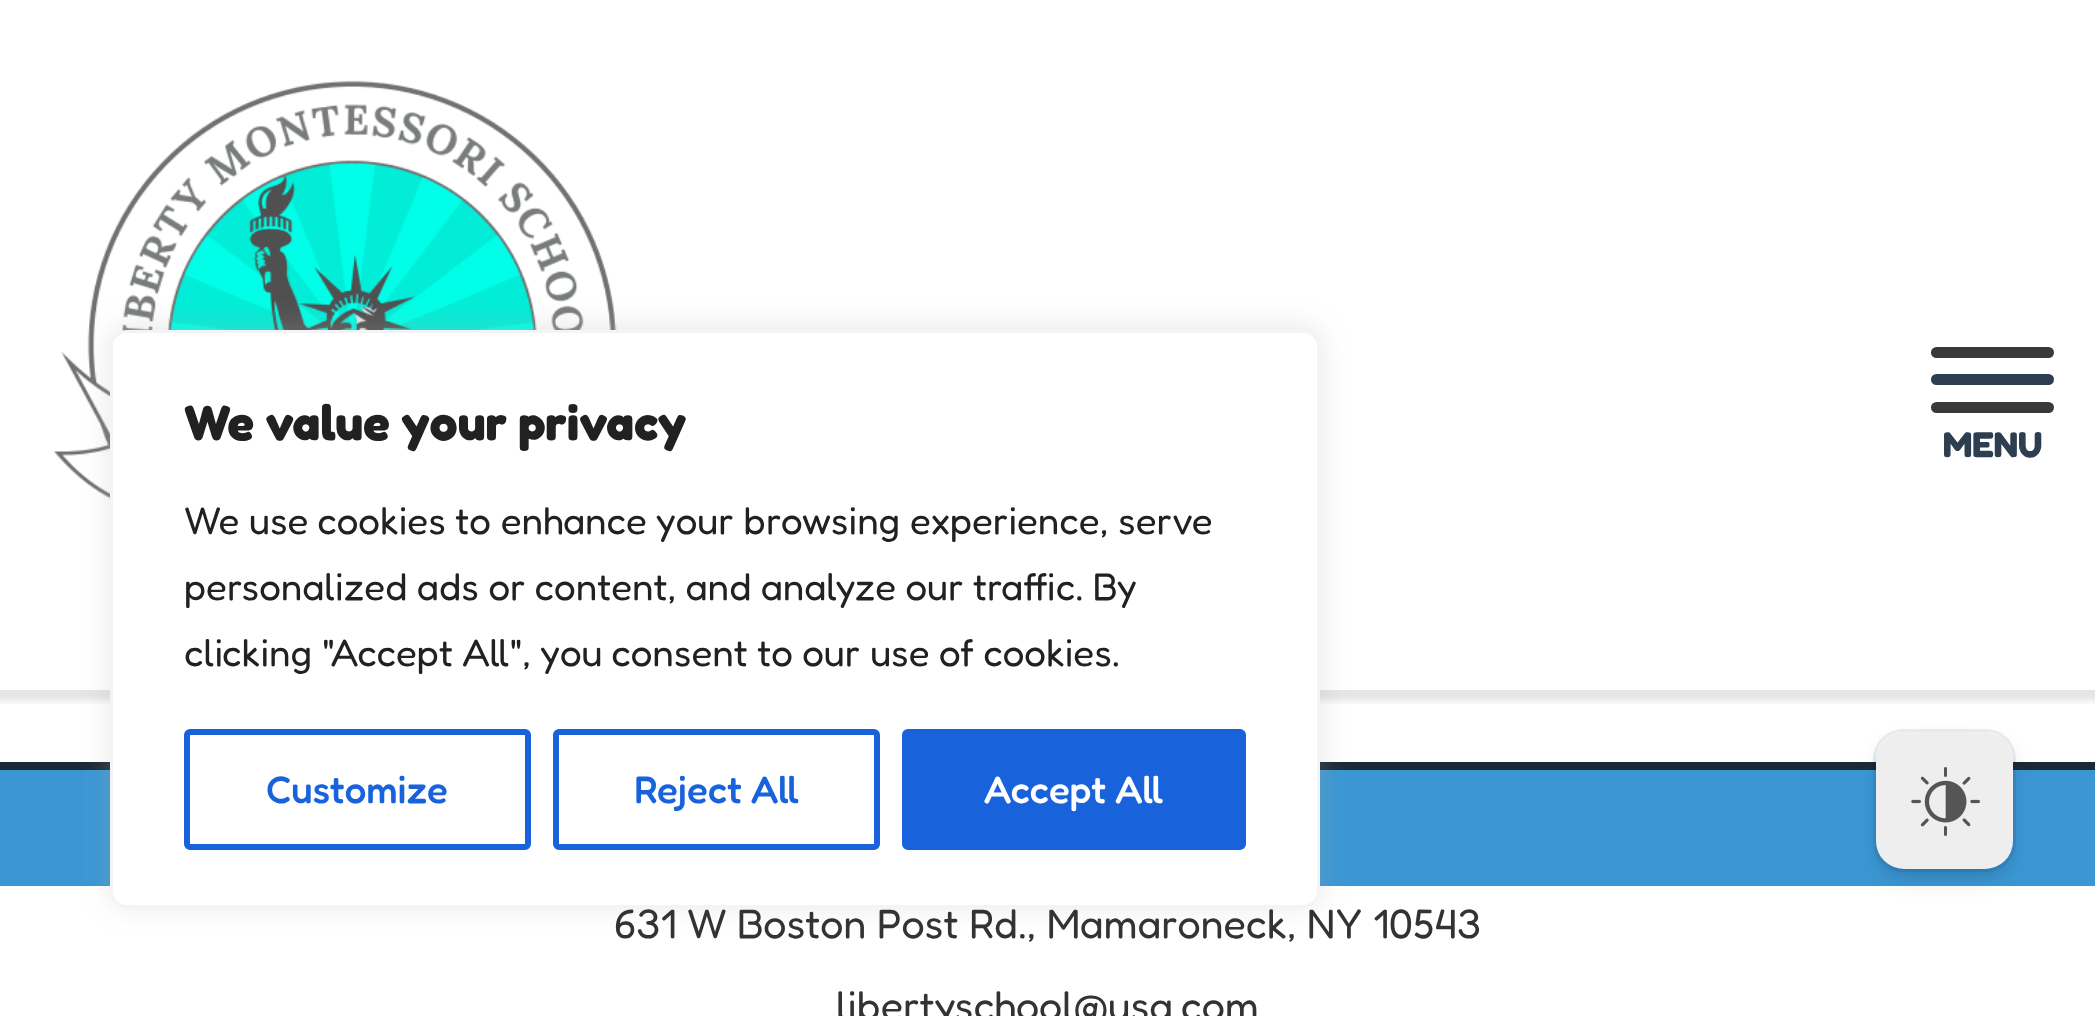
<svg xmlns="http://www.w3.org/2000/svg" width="2095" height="1016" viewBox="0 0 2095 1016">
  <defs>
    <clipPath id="clip1"><path d="M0 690h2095v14H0z"/></clipPath>
  </defs>
  <rect width="100%" height="100%" fill="#fff"/>
  <g clip-path="url(#clip1)">
    <path d="M-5 0h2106v701H-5z" fill="#0000001a" filter="blur(3px)"/>
  </g>
  <image x="53" y="80" width="575" height="431" href="img/1.png"/>
  <path d="M0 770h2095v116H0z" fill="#3b97d3"/>
  <path d="M0 762h2095v8H0z" fill="#1d2935"/>
  <rect x="110" y="327" width="1210" height="578" rx="17" fill="#acabab4d" filter="blur(14px)"/>
  <rect x="111.5" y="331.5" width="1207" height="575" rx="15.5" fill="#fff" stroke="#f4f4f4" stroke-width="3"/>
  <rect x="187" y="732" width="341" height="115" rx="3" fill="none" stroke="#1863dc" stroke-width="6"/>
  <rect x="556" y="732" width="321" height="115" rx="3" fill="none" stroke="#1863dc" stroke-width="6"/>
  <rect x="905" y="732" width="338" height="115" rx="3" fill="#1863dc" stroke="#1863dc" stroke-width="6"/>
  <rect x="1931" y="374" width="123" height="11" rx="5.5" fill="#2c3e50"/>
  <rect x="1931" y="347" width="123" height="11" rx="5.5" fill="#393939"/>
  <rect x="1931" y="402" width="123" height="11" rx="5.5" fill="#393939"/>
  <rect x="1874.5" y="730.5" width="140" height="140" rx="28.5" fill="none" stroke="#091e4214" stroke-width="3"/>
  <rect x="1881" y="748" width="127" height="127" rx="22" fill="#091e4240" filter="blur(11px)"/>
  <rect x="1876" y="732" width="137" height="137" rx="28" fill="#eee"/>
  <image x="1911" y="767" width="69" height="69" href="img/2.png"/>
  <text x="184" y="440" font-family="Fredoka" font-size="49.5" font-weight="bold" fill="#212121">We value your privacy</text>
  <g font-family="Fredoka" font-size="38.5" fill="#212121">
    <text x="184" y="534">We use cookies to enhance your browsing experience, serve</text>
    <text x="184" y="600">personalized ads or content, and analyze our traffic. By</text>
    <text x="184" y="666">clicking "Accept All", you consent to our use of cookies.</text>
  </g>
  <g font-family="Fredoka" font-size="38.5" font-weight="500" fill="#1863dc">
    <text x="266" y="803">Customize</text>
    <text x="634" y="803">Reject All</text>
  </g>
  <text x="984" y="803" font-family="Fredoka" font-size="38.5" font-weight="500" fill="#fff">Accept All</text>
  <text x="1943" y="457" font-family="Fredoka" font-size="36" font-weight="bold" fill="#2c3e50">MENU</text>
  <g font-family="Fredoka" font-size="41.25" fill="#333">
    <text x="614" y="938">631 W Boston Post Rd., Mamaroneck, NY 10543</text>
    <text x="836" y="1020">libertyschool@usa.com</text>
  </g>
</svg>
